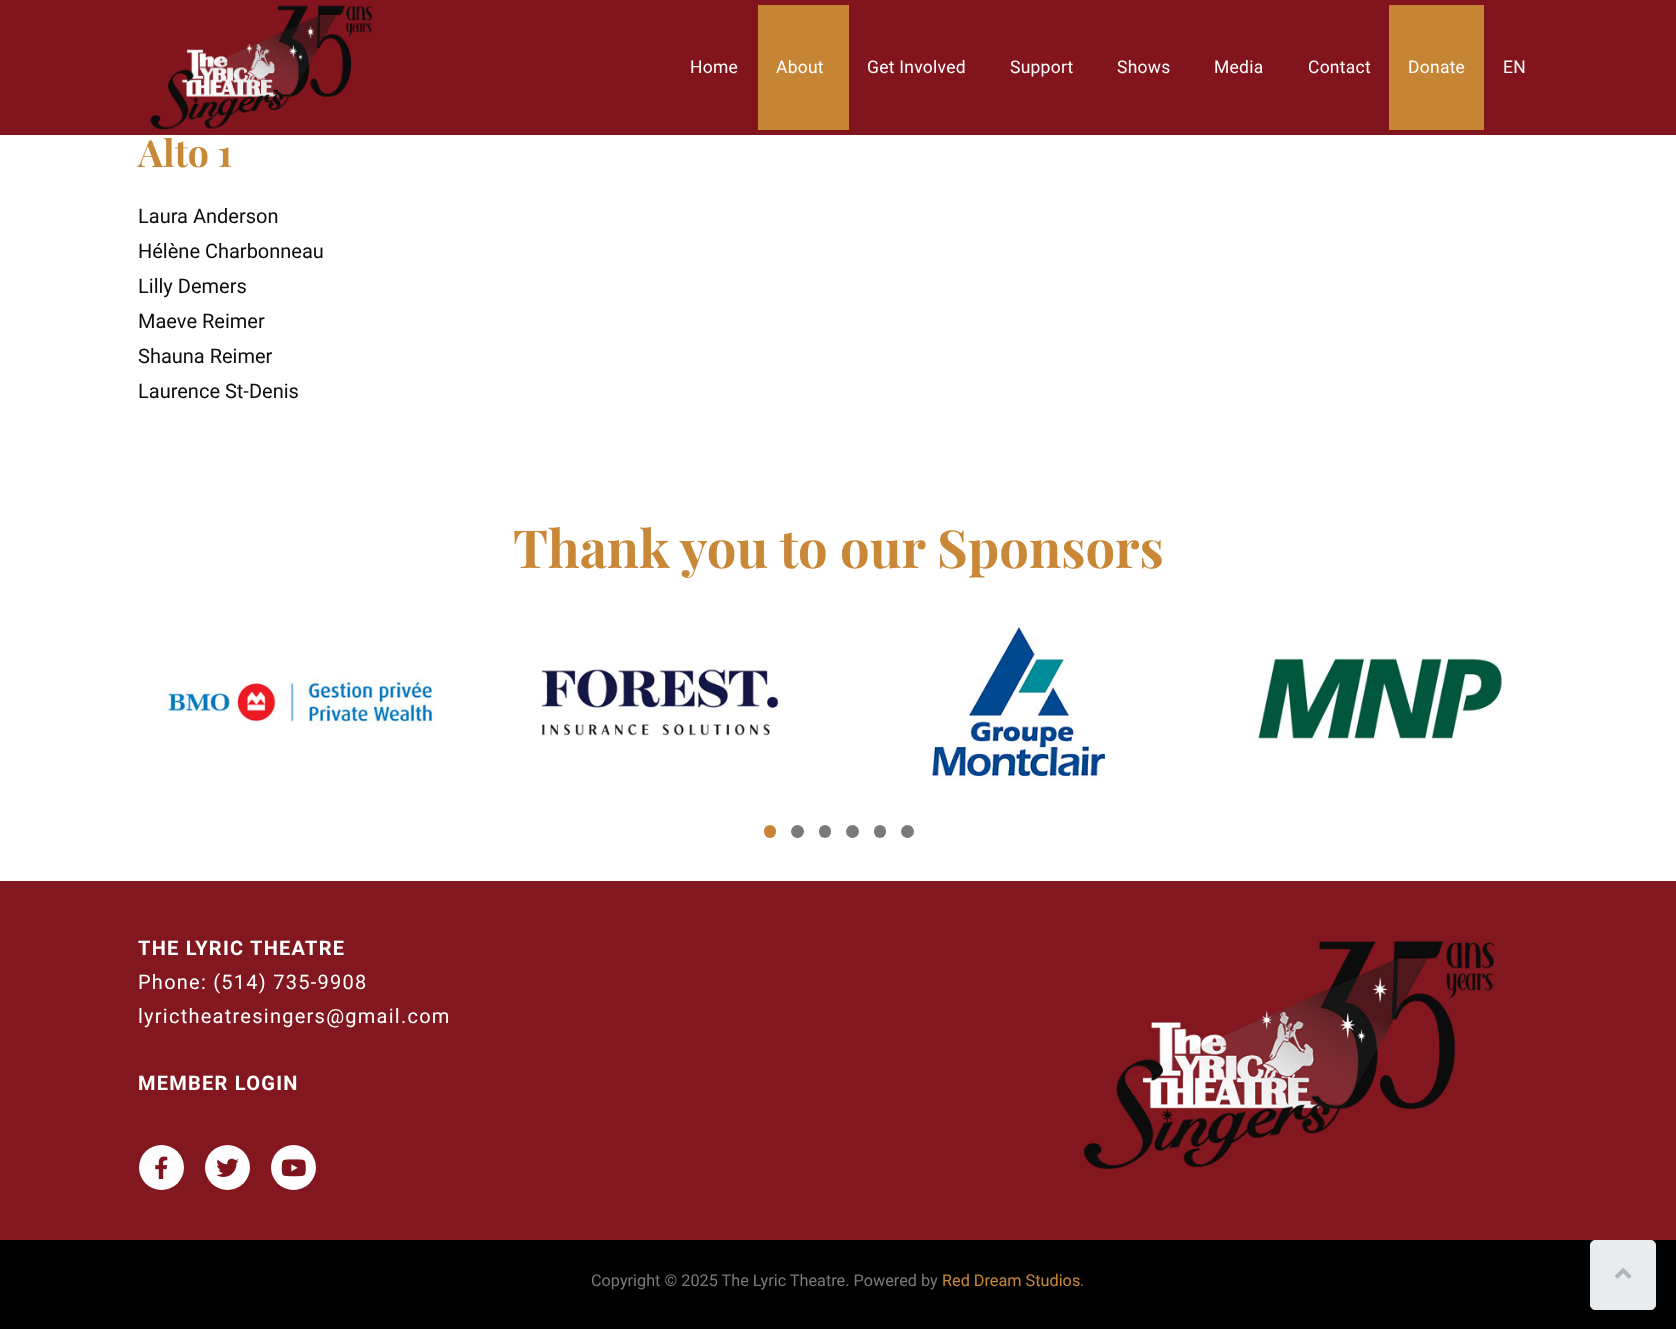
<svg xmlns="http://www.w3.org/2000/svg" width="1676" height="1329" viewBox="0 0 1676 1329">
  <rect width="100%" height="100%" fill="#fff"/>
  <path d="M0 0h1676v135H0z" fill="#82141d"/>
  <image x="150" y="5" width="223" height="125" href="img/1.png"/>
  <path d="M758 5h91v125H758z" fill="#c68535"/>
  <path d="M1389 5h95v125H1389z" fill="#c68535"/>
  <image x="165" y="678" width="272" height="48" href="img/2.png"/>
  <image x="539" y="665" width="241" height="72" href="img/3.png"/>
  <image x="932" y="624" width="177" height="156" href="img/4.png"/>
  <image x="1258" y="658" width="245" height="82" href="img/5.png"/>
  <rect x="764" y="825" width="12" height="13" rx="6" fill="#c78636"/>
  <circle cx="797.5" cy="831.5" r="6.5" fill="#7a7a7a"/>
  <rect x="819" y="825" width="12" height="13" rx="6" fill="#7a7a7a"/>
  <circle cx="852.5" cy="831.5" r="6.5" fill="#7a7a7a"/>
  <rect x="874" y="825" width="12" height="13" rx="6" fill="#7a7a7a"/>
  <circle cx="907.5" cy="831.5" r="6.5" fill="#7a7a7a"/>
  <path d="M0 881h1676v359H0z" fill="#82171f"/>
  <circle cx="161.5" cy="1167.5" r="22.5" fill="#fff"/>
  <image x="155" y="1156" width="13" height="24" href="img/6.png"/>
  <circle cx="227.5" cy="1167.5" r="22.5" fill="#fff"/>
  <image x="216" y="1158" width="23" height="19" href="img/7.png"/>
  <circle cx="293.5" cy="1167.5" r="22.5" fill="#fff"/>
  <image x="281" y="1159" width="25" height="18" href="img/8.png"/>
  <image x="1084" y="941" width="410" height="228" href="img/9.png"/>
  <path d="M0 1240h1676v89H0z" fill="#000"/>
  <rect x="1590.5" y="1240.5" width="65" height="69" rx="4.5" fill="#e9ecef" stroke="#e9ecef"/>
  <image x="1615" y="1268" width="17" height="11" href="img/10.png"/>
  <g font-family="Roboto" font-size="17.5" letter-spacing="0.25" fill="#fff">
    <text x="690" y="73">Home</text>
    <text x="776" y="73">About</text>
    <text x="867" y="73">Get Involved</text>
    <text x="1010" y="73">Support</text>
    <text x="1117" y="73">Shows</text>
    <text x="1214" y="73">Media</text>
    <text x="1308" y="73">Contact</text>
    <text x="1408" y="73">Donate</text>
    <text x="1503" y="73">EN</text>
  </g>
  <text x="138" y="167" font-family="Playfair Display" font-size="37.5" font-weight="bold" fill="#c98838">Alto 1</text>
  <g font-family="Roboto" font-size="20" fill="#0c0c0c">
    <text x="138" y="223">Laura Anderson</text>
    <text x="138" y="258">Hélène Charbonneau</text>
    <text x="138" y="293">Lilly Demers</text>
    <text x="138" y="328">Maeve Reimer</text>
    <text x="138" y="363">Shauna Reimer</text>
    <text x="138" y="398">Laurence St-Denis</text>
  </g>
  <text x="513" y="568" font-family="Playfair Display" font-size="52.5" font-weight="bold" fill="#c98838">Thank you to our Sponsors</text>
  <text x="138" y="955" font-family="Roboto" font-size="20" font-weight="bold" letter-spacing="1.25" fill="#fff">THE LYRIC THEATRE</text>
  <g font-family="Roboto" font-size="20" letter-spacing="1.25" fill="#fff">
    <text x="138" y="989">Phone: (514) 735-9908</text>
    <text x="138" y="1023">lyrictheatresingers@gmail.com</text>
  </g>
  <text x="138" y="1090" font-family="Roboto" font-size="20" font-weight="bold" letter-spacing="1.25" fill="#fff">MEMBER LOGIN</text>
  <text x="591" y="1286" font-family="Roboto" font-size="16.25" fill="#7a7a7a">Copyright © 2025 The Lyric Theatre. Powered by</text>
  <text x="942" y="1286" font-family="Roboto" font-size="16.25" fill="#c98838">Red Dream Studios</text>
  <text x="1080" y="1286" font-family="Roboto" font-size="16.25" fill="#7a7a7a">.</text>
</svg>
